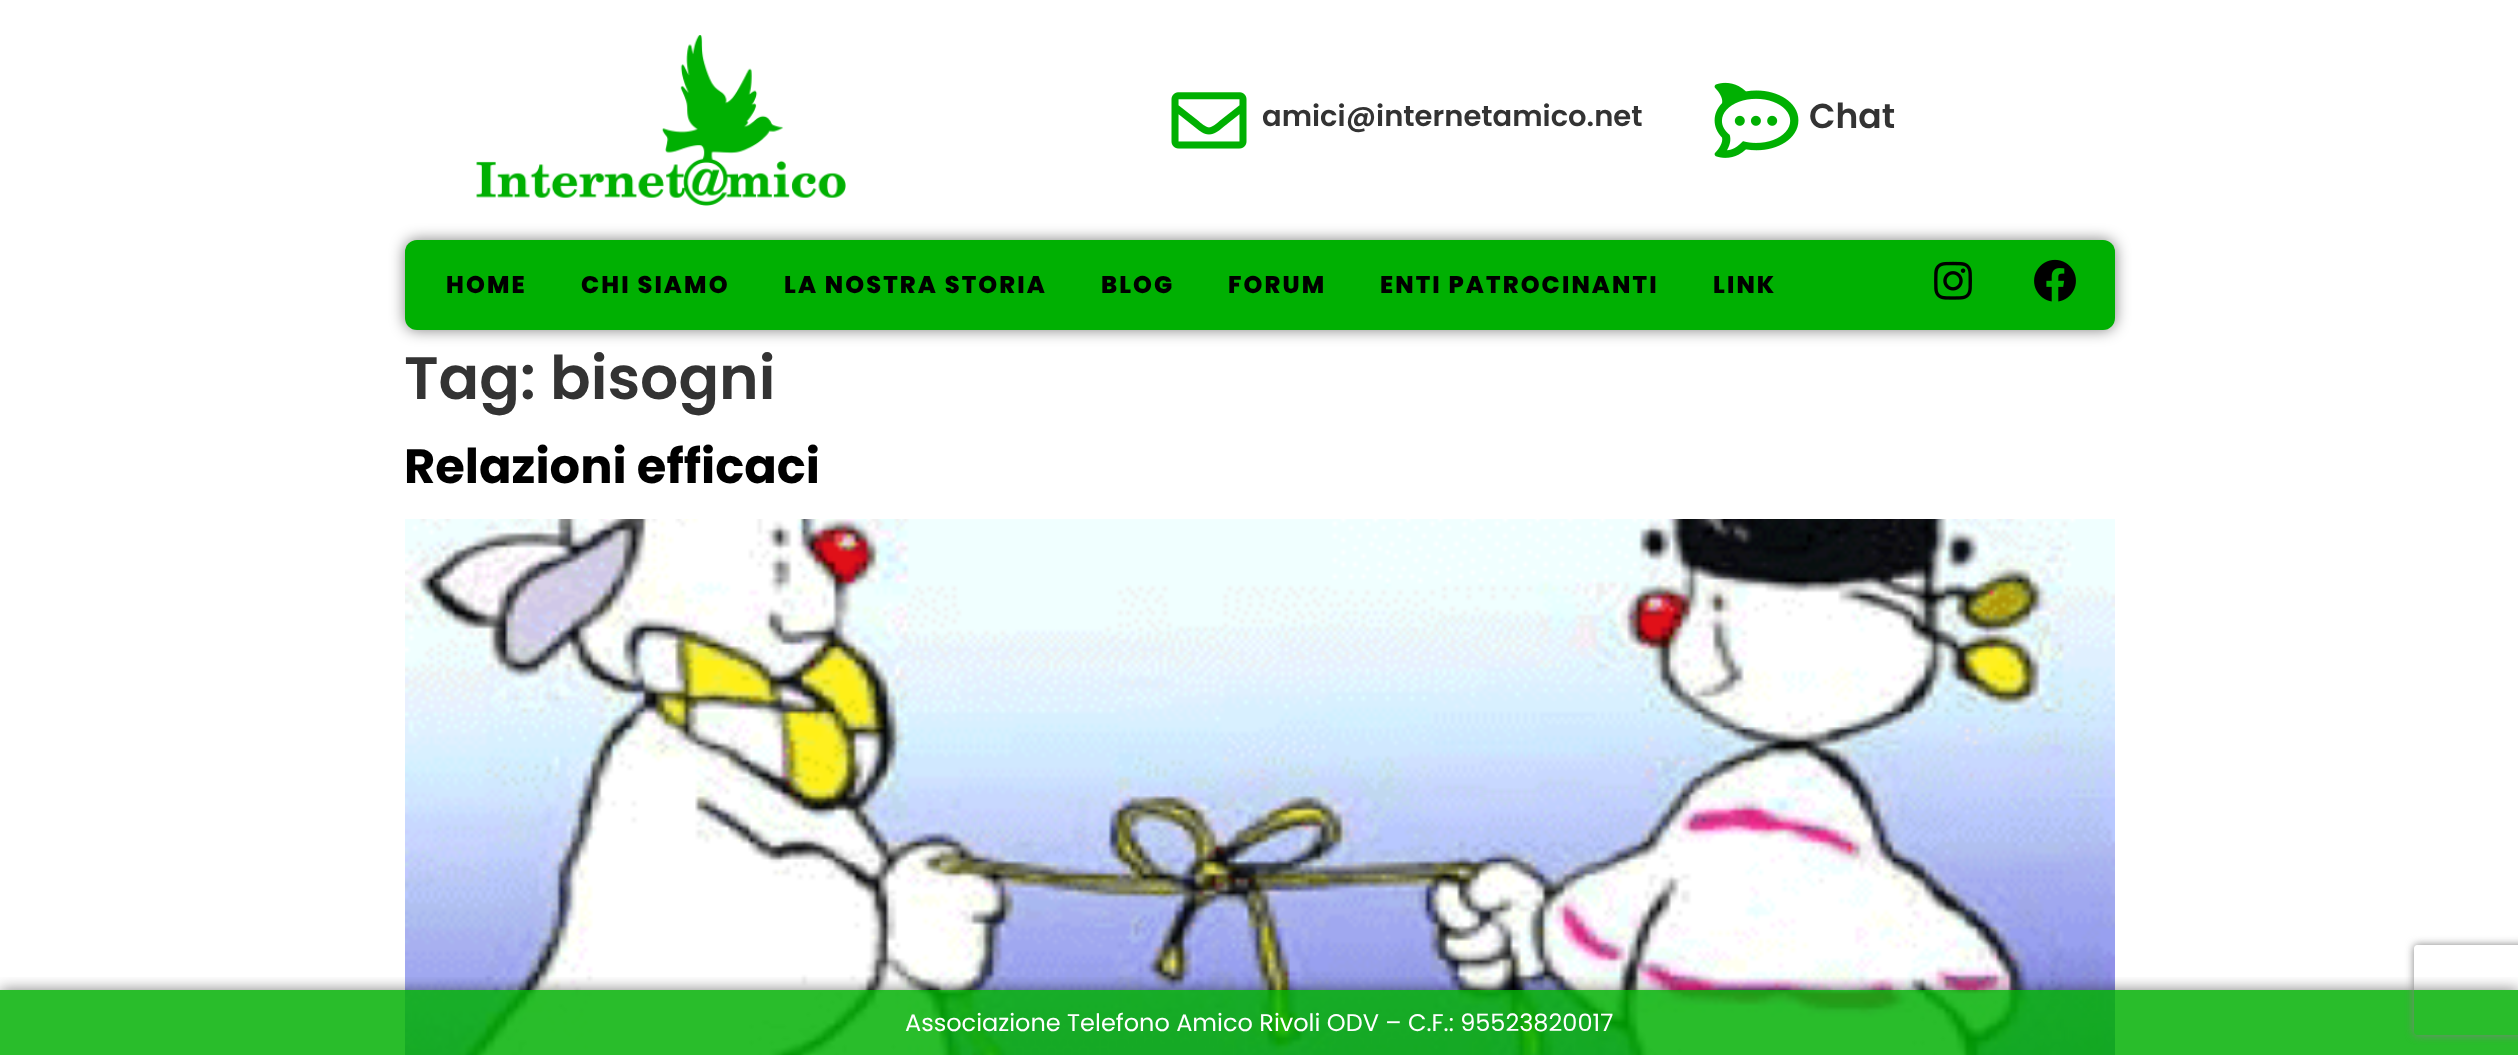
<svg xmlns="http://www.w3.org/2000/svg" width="2518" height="1055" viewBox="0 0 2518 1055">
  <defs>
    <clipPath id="clip1"><path d="M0 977h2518v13H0z"/></clipPath>
    <clipPath id="clip2"><path d="M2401 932H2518V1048H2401ZM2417 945H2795C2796.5 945 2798 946.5 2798 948V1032C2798 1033.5 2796.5 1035 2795 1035H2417C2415.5 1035 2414 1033.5 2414 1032V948C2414 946.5 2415.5 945 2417 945Z" clip-rule="evenodd"/></clipPath>
  </defs>
  <rect width="100%" height="100%" fill="#fff"/>
  <image x="476" y="35" width="370" height="171" href="img/1.png"/>
  <image x="1171" y="92" width="76" height="57" href="img/2.png"/>
  <image x="1714" y="82" width="85" height="76" href="img/3.png"/>
  <rect x="405" y="240" width="1710" height="90" rx="12" fill="#00000080" filter="blur(7.5px)"/>
  <rect x="405" y="240" width="1710" height="90" rx="12" fill="#00b002"/>
  <image x="1934" y="261" width="38" height="39" href="img/4.png"/>
  <image x="2034" y="259" width="42" height="43" href="img/5.png"/>
  <image x="405" y="519" width="1710" height="536" href="img/6.png"/>
  <g clip-path="url(#clip1)">
    <path d="M0 990h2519v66H0z" fill="#00000080" filter="blur(7.5px)"/>
  </g>
  <path d="M0 990h2518v65H0z" fill="#00b002d6"/>
  <g clip-path="url(#clip2)">
    <rect x="2414" y="945" width="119" height="90" rx="3" fill="#808080" filter="blur(4px)"/>
  </g>
  <text x="1262" y="126" font-family="Poppins" font-size="29" font-weight="600" fill="#333">amici@internetamico.net</text>
  <text x="1809" y="128" font-family="Poppins" font-size="34.5" font-weight="600" fill="#333">Chat</text>
  <g font-family="Poppins" font-size="24" font-weight="800" letter-spacing="2.1" fill="#000">
    <text x="446" y="293">HOME</text>
    <text x="581" y="293">CHI SIAMO</text>
    <text x="784" y="293">LA NOSTRA STORIA</text>
    <text x="1101" y="293">BLOG</text>
    <text x="1228" y="293">FORUM</text>
    <text x="1380" y="293">ENTI PATROCINANTI</text>
    <text x="1713" y="293">LINK</text>
  </g>
  <text x="404" y="399" font-family="Poppins" font-size="60" font-weight="600" fill="#333">Tag: bisogni</text>
  <text x="404" y="483" font-family="Poppins" font-size="48" font-weight="bold" fill="#000">Relazioni efficaci</text>
  <text x="905" y="1031" font-family="Poppins" font-size="24" fill="#fff">Associazione Telefono Amico Rivoli ODV – C.F.: 95523820017</text>
</svg>
